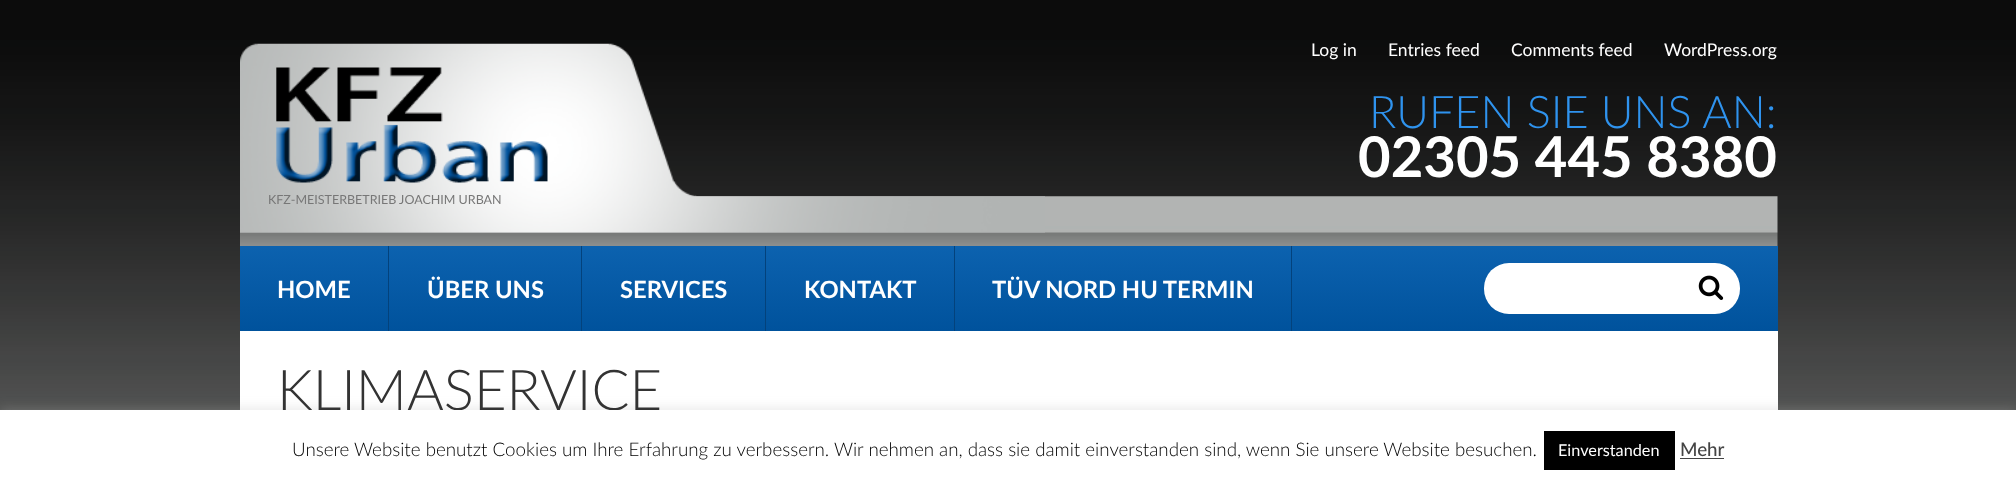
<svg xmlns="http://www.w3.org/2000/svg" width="2016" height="485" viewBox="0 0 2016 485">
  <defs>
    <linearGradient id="g1" gradientUnits="userSpaceOnUse" x1="1009" y1="246" x2="1009" y2="331"><stop offset="0" stop-color="#0c62af"/><stop offset="1" stop-color="#00529c"/></linearGradient>
  </defs>
  <rect width="100%" height="100%" fill="#fff"/>
  <image x="0" y="0" width="2016" height="410" href="img/1.png"/>
  <image x="240" y="196" width="1538" height="50" href="img/2.png"/>
  <image x="240" y="43" width="805" height="190" href="img/3.png"/>
  <image x="276" y="67" width="272" height="116" href="img/4.png"/>
  <path d="M240 246h1538v85H240z" fill="url(#g1)"/>
  <path d="M388 246h1v85H388z" fill="#03427c"/>
  <path d="M581 246h1v85H581z" fill="#03427c"/>
  <path d="M765 246h1v85H765z" fill="#03427c"/>
  <path d="M954 246h1v85H954z" fill="#03427c"/>
  <path d="M1291 246h1v85H1291z" fill="#03427c"/>
  <rect x="1484" y="263" width="256" height="51" rx="25" fill="#fff"/>
  <image x="1698" y="275" width="26" height="25" href="img/5.png"/>
  <path d="M240 331h1538v79H240z" fill="#fff"/>
  <path d="M0 409h2016v75H0z" fill="#acabab4d" filter="blur(6px)"/>
  <g font-family="Lato" font-size="17.5" fill="#fff">
    <text x="1311" y="56">Log in</text>
    <text x="1388" y="56">Entries feed</text>
    <text x="1511" y="56">Comments feed</text>
    <text x="1664" y="56">WordPress.org</text>
  </g>
  <text x="1369" y="128" font-family="Lato" font-size="45" font-weight="300" fill="#2f93ee">RUFEN SIE UNS AN:</text>
  <text x="1358" y="177" font-family="Lato" font-size="56.25" font-weight="bold" fill="#fff">02305 445 8380</text>
  <text x="268" y="204" font-family="Lato" font-size="12.5" fill="#777">KFZ-MEISTERBETRIEB JOACHIM URBAN</text>
  <g font-family="Lato" font-size="23.75" font-weight="bold" fill="#fff">
    <text x="277" y="298">HOME</text>
    <text x="427" y="298">ÜBER UNS</text>
    <text x="620" y="298">SERVICES</text>
    <text x="804" y="298">KONTAKT</text>
    <text x="992" y="298">TÜV NORD HU TERMIN</text>
  </g>
  <text x="277" y="410" font-family="Lato" font-size="56.25" font-weight="300" fill="#333">KLIMASERVICE</text>
  <path d="M0 410h2016v75H0z" fill="#fff"/>
  <text x="292" y="456" font-family="Lato" font-size="18.75" font-weight="300" fill="#000">Unsere Website benutzt Cookies um Ihre Erfahrung zu verbessern. Wir nehmen an, dass sie damit einverstanden sind, wenn Sie unsere Website besuchen.</text>
  <path d="M1544 431h131v39H1544z" fill="#000"/>
  <text x="1558" y="456" font-family="Lato" font-size="16.25" fill="#fff">Einverstanden</text>
  <text x="1680" y="456" font-family="Lato" font-size="18.75" font-weight="500" fill="#444">Mehr</text>
  <path d="M1680 458h44v1H1680z" fill="#444"/>
</svg>
